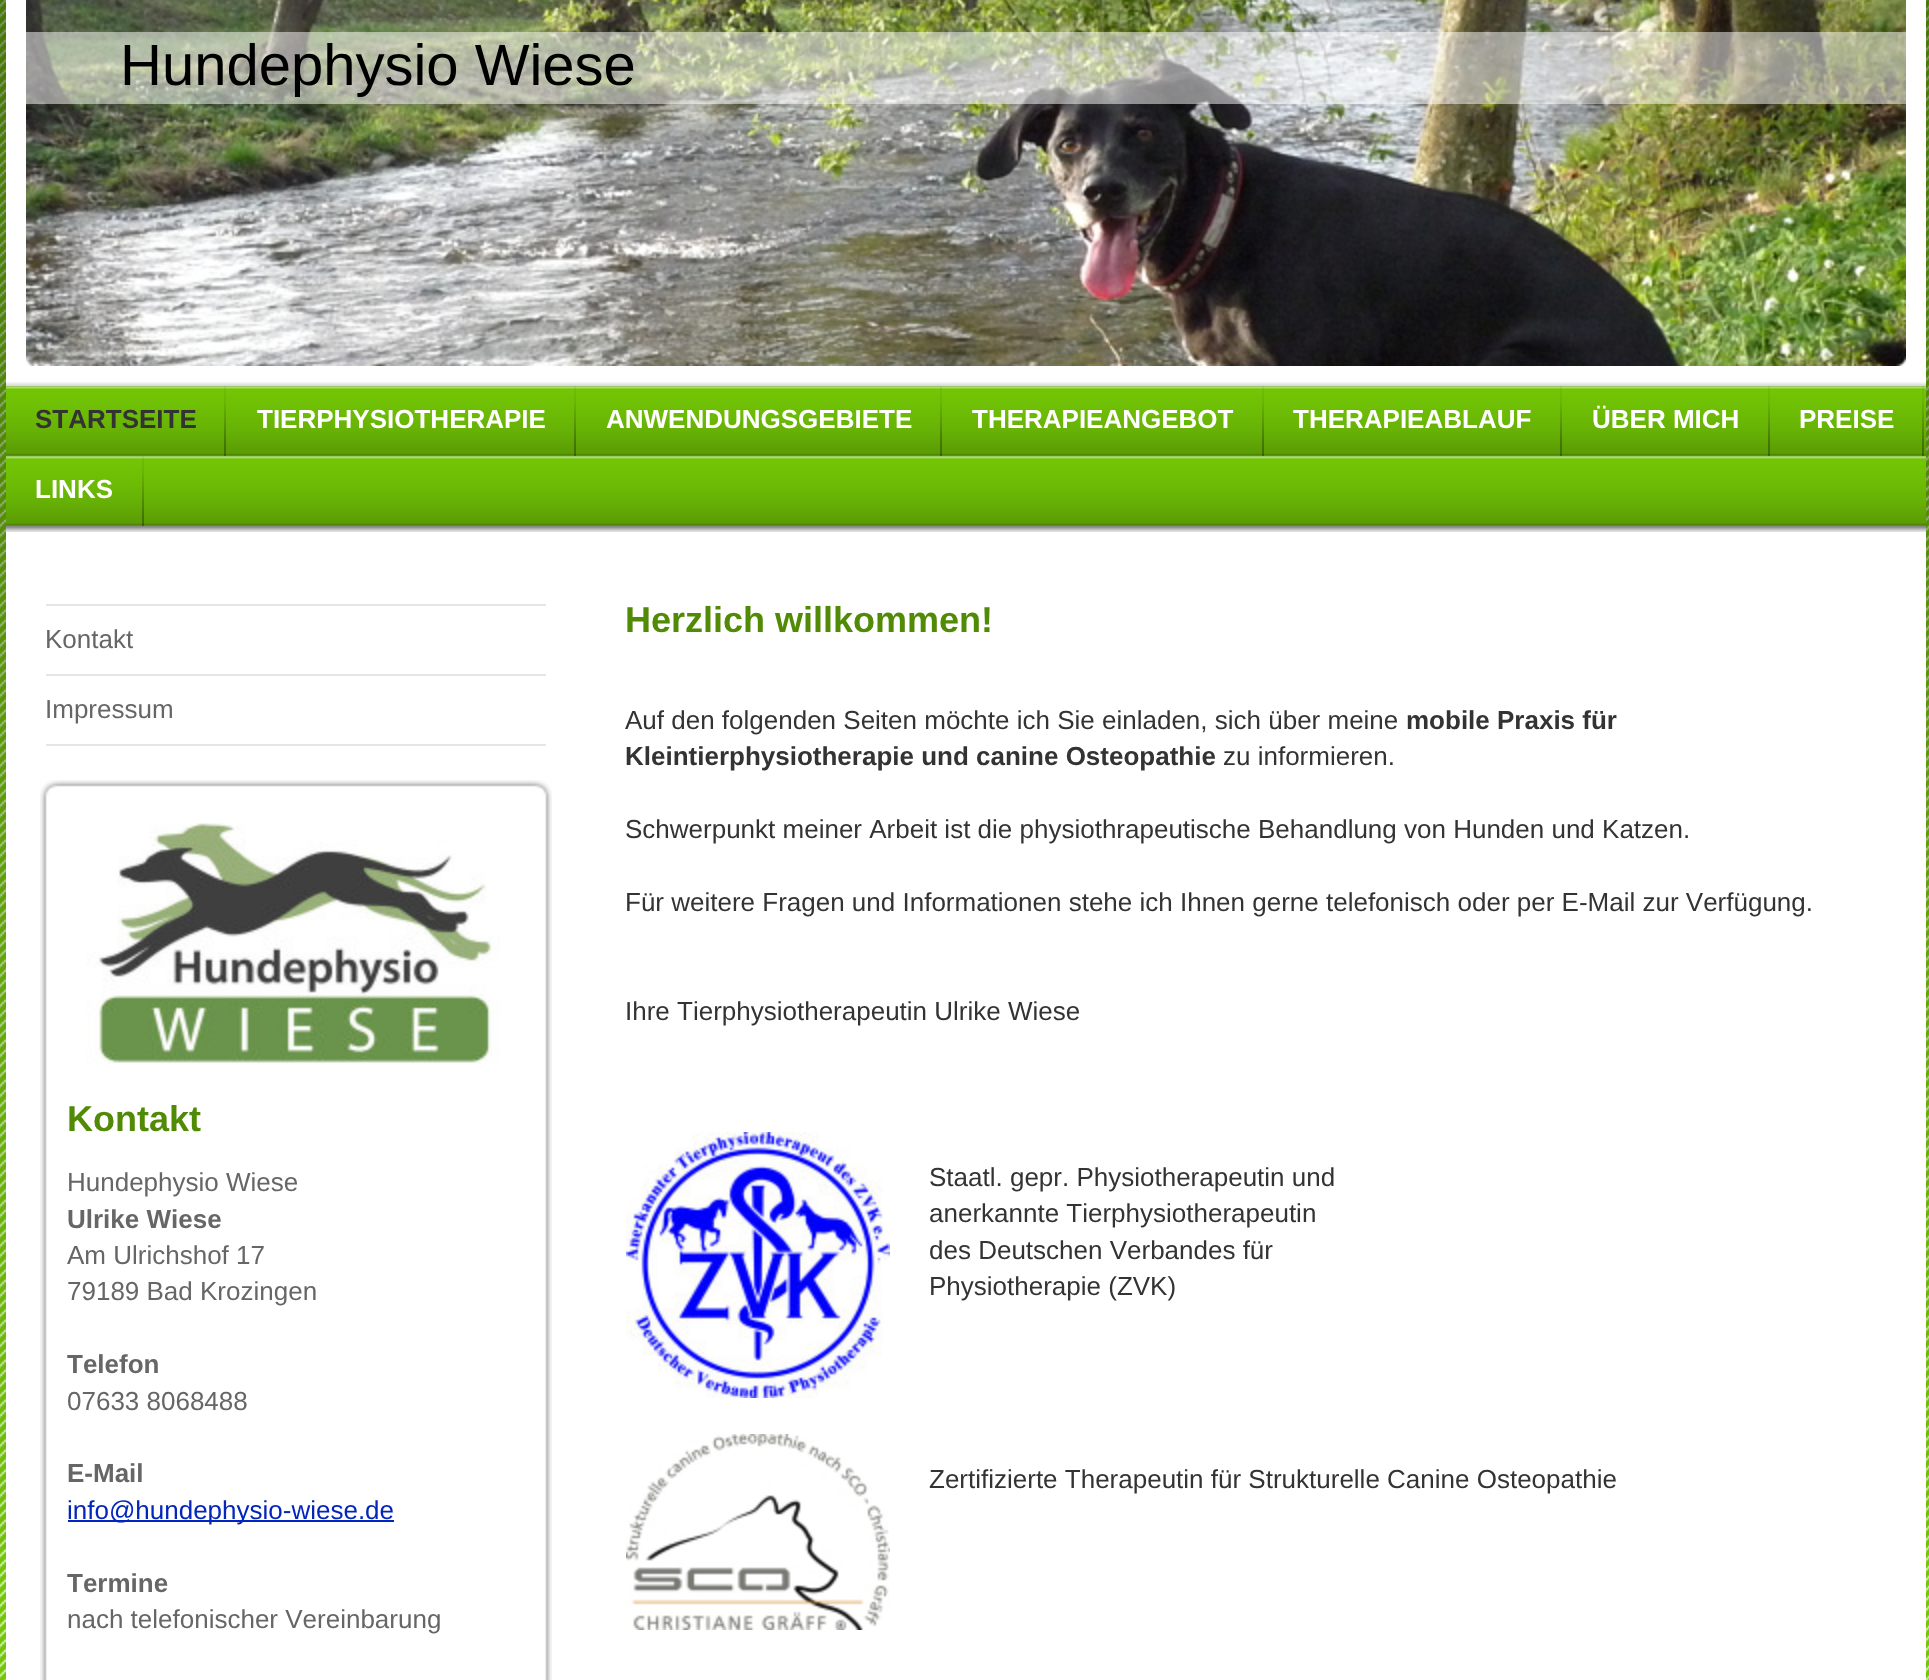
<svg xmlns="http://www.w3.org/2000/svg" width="1929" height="1680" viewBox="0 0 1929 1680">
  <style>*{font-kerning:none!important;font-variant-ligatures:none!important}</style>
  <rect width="100%" height="100%" fill="#73c606"/>
  <image x="0" y="0" width="1929" height="1680" href="img/1.png"/>
  <image x="0" y="0" width="1929" height="1549" href="img/2.png"/>
  <path d="M6 0h1920v1680H6z" fill="#fff"/>
  <image x="26" y="0" width="1880" height="366" href="img/3.png"/>
  <path d="M26 32h1880v72H26z" fill="#ffffff80"/>
  <image x="26" y="356" width="9" height="10" href="img/4.png"/>
  <image x="1896" y="356" width="10" height="10" href="img/5.png"/>
  <image x="6" y="382" width="1920" height="4" href="img/6.png"/>
  <path d="M6 386h1920v140H6z" fill="#73c606"/>
  <image x="6" y="386" width="1920" height="140" href="img/7.png"/>
  <image x="224" y="386" width="2" height="70" href="img/8.png"/>
  <image x="574" y="386" width="2" height="70" href="img/8.png"/>
  <image x="940" y="386" width="2" height="70" href="img/8.png"/>
  <image x="1262" y="386" width="2" height="70" href="img/8.png"/>
  <image x="1560" y="386" width="2" height="70" href="img/8.png"/>
  <image x="1768" y="386" width="2" height="70" href="img/8.png"/>
  <image x="1922" y="386" width="2" height="70" href="img/8.png"/>
  <image x="142" y="456" width="2" height="70" href="img/8.png"/>
  <image x="6" y="526" width="1920" height="6" href="img/9.png"/>
  <path d="M46 604h500v2H46z" fill="#e5e5e5"/>
  <path d="M46 674h500v2H46z" fill="#e5e5e5"/>
  <path d="M46 744h500v2H46z" fill="#e5e5e5"/>
  <image x="40" y="780" width="512" height="18" href="img/10.png"/>
  <image x="40" y="798" width="512" height="882" href="img/11.png"/>
  <image x="86" y="823" width="414" height="241" href="img/12.png"/>
  <path d="M68 1520h326v2H68z" fill="#0325bc"/>
  <image x="626" y="1132" width="264" height="266" href="img/13.png"/>
  <image x="626" y="1434" width="264" height="196" href="img/14.png"/>
  <text x="120" y="85" font-family="Liberation Sans" font-size="58" fill="#000">Hundephysio Wiese</text>
  <text x="35" y="428" font-family="Liberation Sans" font-size="26" font-weight="bold" fill="#333">STARTSEITE</text>
  <g font-family="Liberation Sans" font-size="26" font-weight="bold" fill="#fff">
    <text x="257" y="428">TIERPHYSIOTHERAPIE</text>
    <text x="606" y="428">ANWENDUNGSGEBIETE</text>
    <text x="972" y="428">THERAPIEANGEBOT</text>
    <text x="1293" y="428">THERAPIEABLAUF</text>
    <text x="1592" y="428">ÜBER MICH</text>
    <text x="1799" y="428">PREISE</text>
    <text x="35" y="498">LINKS</text>
  </g>
  <g font-family="Liberation Sans" font-size="26" fill="#666">
    <text x="45" y="648">Kontakt</text>
    <text x="45" y="718">Impressum</text>
  </g>
  <text x="67" y="1131" font-family="Liberation Sans" font-size="36" font-weight="bold" fill="#518a05">Kontakt</text>
  <text x="67" y="1191" font-family="Liberation Sans" font-size="26" fill="#666">Hundephysio Wiese</text>
  <text x="67" y="1228" font-family="Liberation Sans" font-size="26" font-weight="bold" fill="#666">Ulrike Wiese</text>
  <g font-family="Liberation Sans" font-size="26" fill="#666">
    <text x="67" y="1264">Am Ulrichshof 17</text>
    <text x="67" y="1300">79189 Bad Krozingen</text>
  </g>
  <text x="67" y="1373" font-family="Liberation Sans" font-size="26" font-weight="bold" fill="#666">Telefon</text>
  <text x="67" y="1410" font-family="Liberation Sans" font-size="26" fill="#666">07633 8068488</text>
  <text x="67" y="1482" font-family="Liberation Sans" font-size="26" font-weight="bold" fill="#666">E-Mail</text>
  <text x="67" y="1519" font-family="Liberation Sans" font-size="26" fill="#0325bc">info@hundephysio-wiese.de</text>
  <text x="67" y="1592" font-family="Liberation Sans" font-size="26" font-weight="bold" fill="#666">Termine</text>
  <text x="67" y="1628" font-family="Liberation Sans" font-size="26" fill="#666">nach telefonischer Vereinbarung</text>
  <text x="625" y="632" font-family="Liberation Sans" font-size="36" font-weight="bold" fill="#518a05">Herzlich willkommen!</text>
  <text x="625" y="729" font-family="Liberation Sans" font-size="26" fill="#333">Auf den folgenden Seiten möchte ich Sie einladen, sich über meine</text>
  <g font-family="Liberation Sans" font-size="26" font-weight="bold" fill="#333">
    <text x="1406" y="729">mobile Praxis für</text>
    <text x="625" y="765">Kleintierphysiotherapie und canine Osteopathie</text>
  </g>
  <g font-family="Liberation Sans" font-size="26" fill="#333">
    <text x="1223" y="765">zu informieren.</text>
    <text x="625" y="838">Schwerpunkt meiner Arbeit ist die physiothrapeutische Behandlung von Hunden und Katzen.</text>
    <text x="625" y="911">Für weitere Fragen und Informationen stehe ich Ihnen gerne telefonisch oder per E-Mail zur Verfügung.</text>
    <text x="625" y="1020">Ihre Tierphysiotherapeutin Ulrike Wiese</text>
    <text x="929" y="1186">Staatl. gepr. Physiotherapeutin und</text>
    <text x="929" y="1222">anerkannte Tierphysiotherapeutin</text>
    <text x="929" y="1259">des Deutschen Verbandes für</text>
    <text x="929" y="1295">Physiotherapie (ZVK)</text>
    <text x="929" y="1488">Zertifizierte Therapeutin für Strukturelle Canine Osteopathie</text>
  </g>
</svg>
